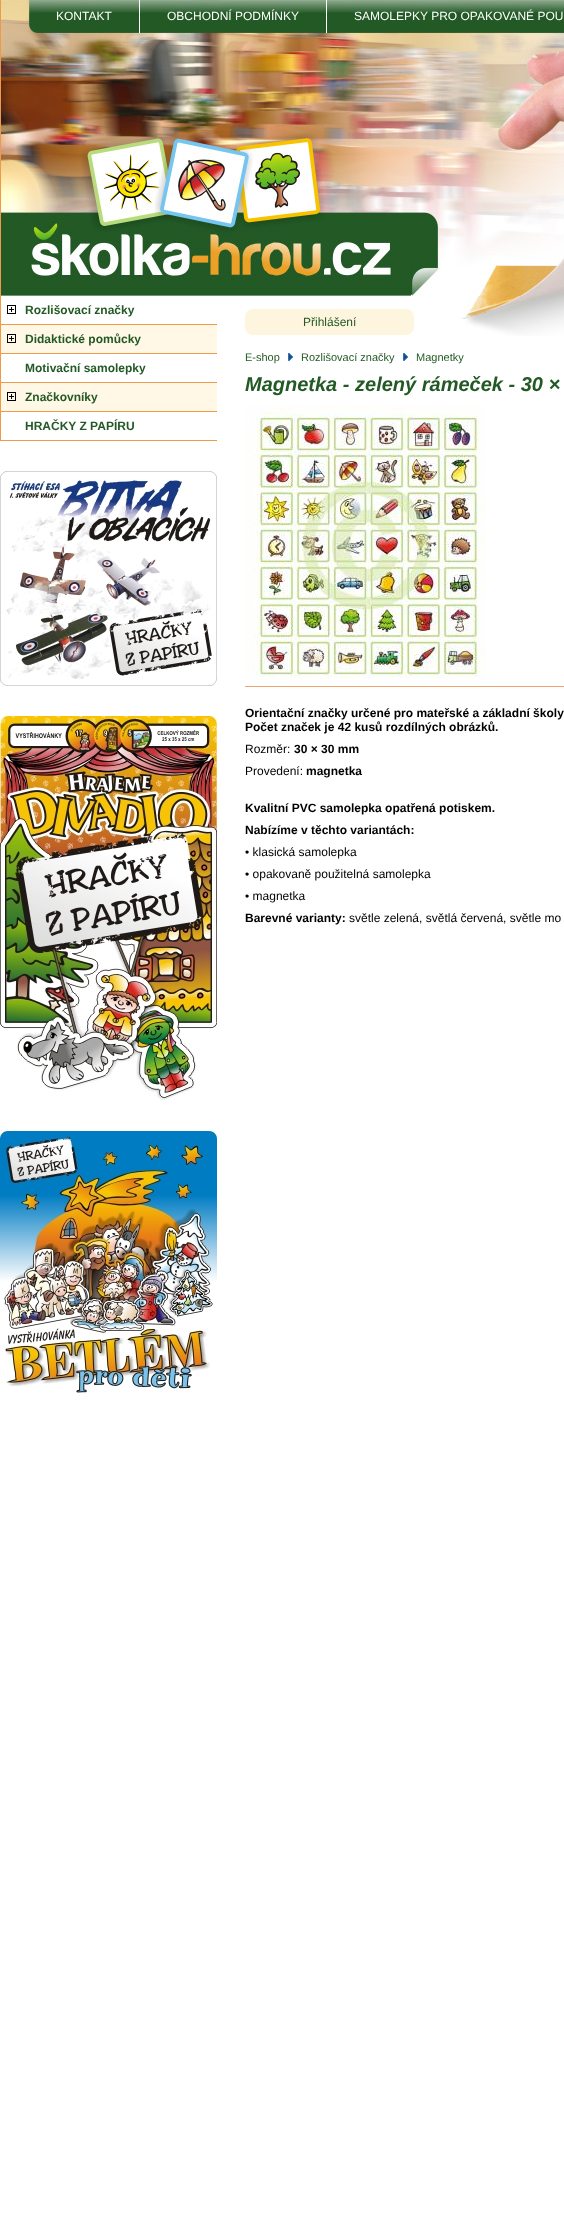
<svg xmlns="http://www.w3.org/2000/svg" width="564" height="2221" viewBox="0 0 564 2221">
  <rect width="100%" height="100%" fill="#fff"/>
  <image x="1" y="0" width="563" height="296" href="img/1.png"/>
  <path d="M0 0h1v441H0z" fill="#ef9a49"/>
  <path d="M139 0h1v33H139z" fill="#fff"/>
  <path d="M326 0h1v33H326z" fill="#fff"/>
  <image x="462" y="296" width="102" height="40" href="img/2.png"/>
  <path d="M1 324h216v1H1z" fill="#ef9a49"/>
  <image x="7" y="305" width="9" height="9" href="img/3.png"/>
  <path d="M1 325h216v28H1z" fill="#fff8e6"/>
  <path d="M1 353h216v1H1z" fill="#ef9a49"/>
  <image x="7" y="334" width="9" height="9" href="img/4.png"/>
  <path d="M1 382h216v1H1z" fill="#ef9a49"/>
  <path d="M1 383h216v28H1z" fill="#fff8e6"/>
  <path d="M1 411h216v1H1z" fill="#ef9a49"/>
  <image x="7" y="392" width="9" height="9" href="img/4.png"/>
  <path d="M1 440h216v1H1z" fill="#ef9a49"/>
  <image x="0" y="471" width="217" height="215" href="img/5.png"/>
  <image x="0" y="716" width="217" height="384" href="img/6.png"/>
  <image x="0" y="1131" width="217" height="262" href="img/7.png"/>
  <rect x="245" y="309" width="169" height="26" rx="8" fill="#fef5de"/>
  <image x="288" y="353" width="5" height="8" href="img/8.png"/>
  <image x="403" y="353" width="5" height="8" href="img/8.png"/>
  <path d="M245 686h319v1H245z" fill="#f0a36d"/>
  <image x="245" y="406" width="240" height="273" href="img/9.png"/>
  <g font-family="Liberation Sans" font-size="12" fill="#fff">
    <text x="56" y="20">KONTAKT</text>
    <text x="167" y="20">OBCHODNÍ PODMÍNKY</text>
    <text x="354" y="20">SAMOLEPKY PRO OPAKOVANÉ POU</text>
  </g>
  <g font-family="Liberation Sans" font-size="12" font-weight="bold" fill="#235925">
    <text x="25" y="314">Rozlišovací značky</text>
    <text x="25" y="343">Didaktické pomůcky</text>
    <text x="25" y="372">Motivační samolepky</text>
    <text x="25" y="401">Značkovníky</text>
    <text x="25" y="430">HRAČKY Z PAPÍRU</text>
  </g>
  <text x="303" y="326" font-family="Liberation Sans" font-size="12" fill="#235925">Přihlášení</text>
  <g font-family="Liberation Sans" font-size="11" fill="#235925">
    <text x="245" y="361">E-shop</text>
    <text x="301" y="361">Rozlišovací značky</text>
    <text x="416" y="361">Magnetky</text>
  </g>
  <text x="245" y="391" font-family="Liberation Sans" font-size="20" font-weight="bold" font-style="italic" fill="#235925">Magnetka - zelený rámeček - 30 ×</text>
  <g font-family="Liberation Sans" font-size="12" font-weight="bold" fill="#000">
    <text x="245" y="717">Orientační značky určené pro mateřské a základní školy</text>
    <text x="245" y="731">Počet značek je 42 kusů rozdílných obrázků.</text>
  </g>
  <text x="245" y="753" font-family="Liberation Sans" font-size="12" fill="#000">Rozměr:</text>
  <text x="294" y="753" font-family="Liberation Sans" font-size="12" font-weight="bold" fill="#000">30 × 30 mm</text>
  <text x="245" y="775" font-family="Liberation Sans" font-size="12" fill="#000">Provedení:</text>
  <g font-family="Liberation Sans" font-size="12" font-weight="bold" fill="#000">
    <text x="306" y="775">magnetka</text>
    <text x="245" y="812">Kvalitní PVC samolepka opatřená potiskem.</text>
    <text x="245" y="834">Nabízíme v těchto variantách:</text>
  </g>
  <g font-family="Liberation Sans" font-size="12" fill="#000">
    <text x="245" y="856">• klasická samolepka</text>
    <text x="245" y="878">• opakovaně použitelná samolepka</text>
    <text x="245" y="900">• magnetka</text>
  </g>
  <text x="245" y="922" font-family="Liberation Sans" font-size="12" font-weight="bold" fill="#000">Barevné varianty:</text>
  <text x="349" y="922" font-family="Liberation Sans" font-size="12" fill="#000">světle zelená, světlá červená, světle mo</text>
</svg>
